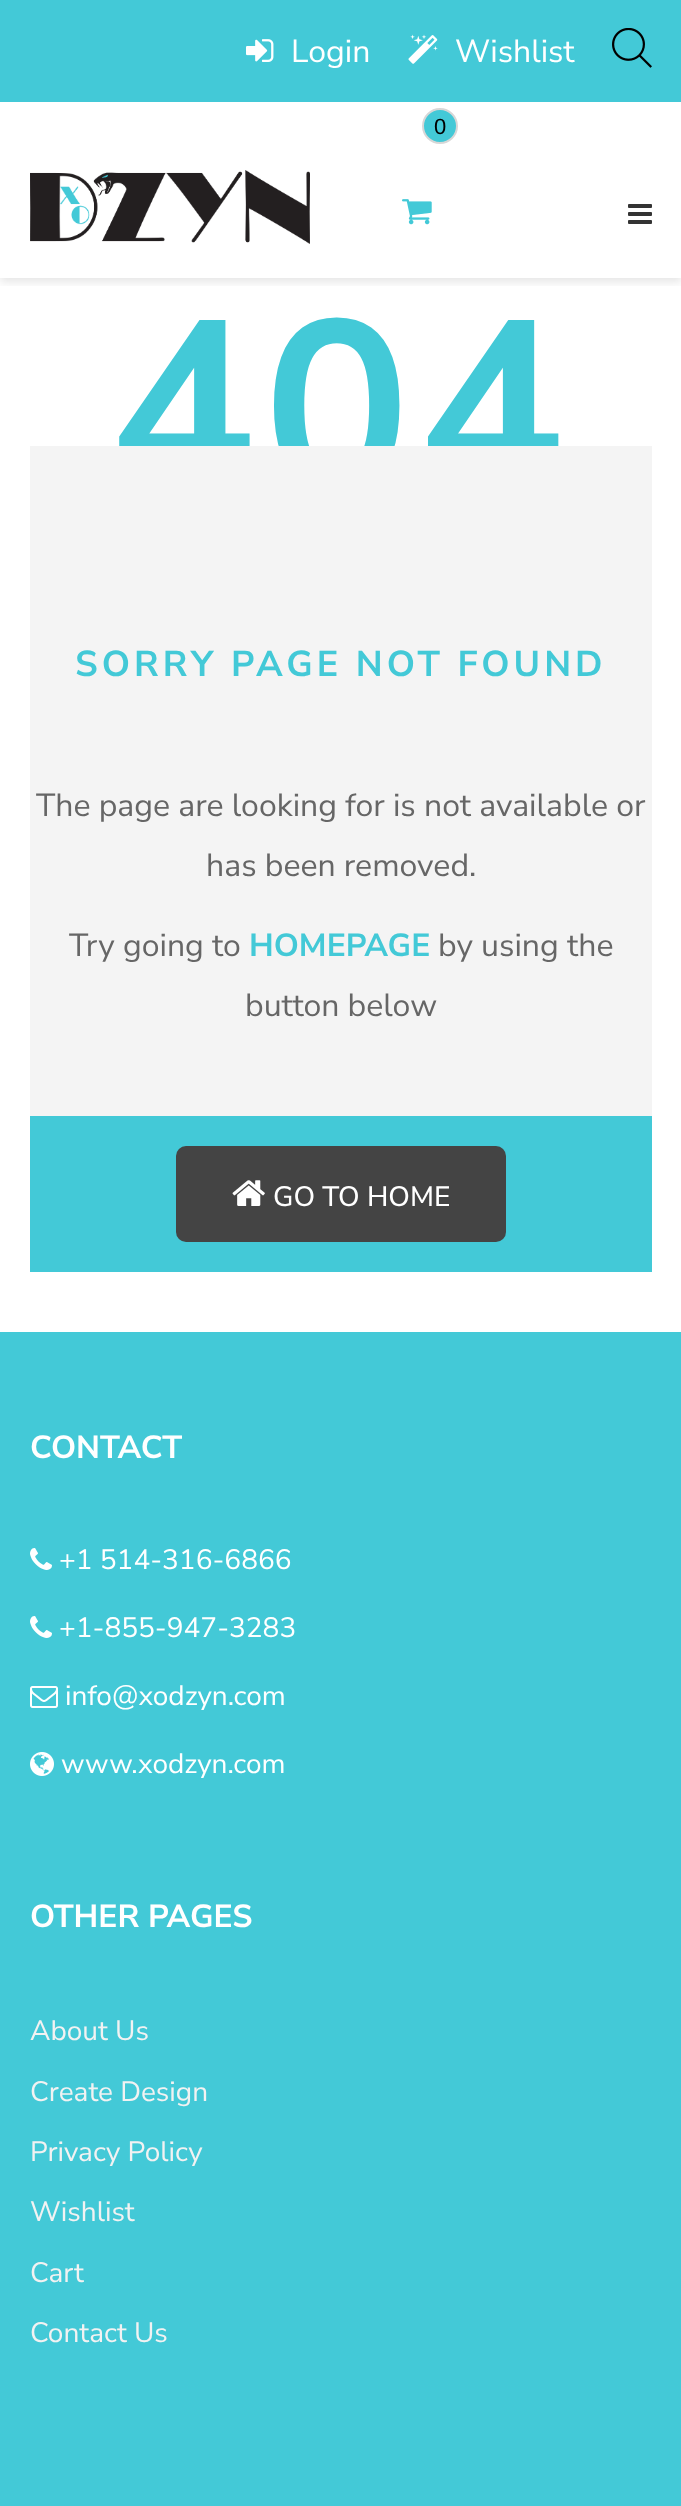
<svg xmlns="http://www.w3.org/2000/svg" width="681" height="2506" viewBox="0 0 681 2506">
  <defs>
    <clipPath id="clip1"><path d="M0 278h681v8H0z"/></clipPath>
  </defs>
  <rect width="100%" height="100%" fill="#fff"/>
  <path d="M0 0h681v102H0z" fill="#43c9d7"/>
  <image x="246" y="39" width="28" height="23" href="img/1.png"/>
  <image x="408" y="34" width="30" height="30" href="img/2.png"/>
  <image x="612" y="28" width="40" height="40" href="img/3.png"/>
  <g clip-path="url(#clip1)">
    <path d="M0 106h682v176H0z" fill="#0000001a" filter="blur(5px)"/>
  </g>
  <circle cx="440" cy="126" r="17" fill="#43c9d7" stroke="#d7d7d7" stroke-width="2"/>
  <image x="402" y="199" width="30" height="26" href="img/4.png"/>
  <image x="628" y="204" width="24" height="20" href="img/5.png"/>
  <image x="30" y="170" width="280" height="74" href="img/6.png"/>
  <path d="M30 1116h622v156H30z" fill="#43c9d7"/>
  <rect x="176" y="1146" width="330" height="96" rx="10" fill="#444"/>
  <image x="232" y="1180" width="33" height="26" href="img/7.png"/>
  <path d="M0 1332h681v1174H0z" fill="#43c9d7"/>
  <image x="30" y="1548" width="22" height="22" href="img/8.png"/>
  <image x="30" y="1616" width="22" height="22" href="img/8.png"/>
  <image x="30" y="1686" width="28" height="22" href="img/9.png"/>
  <image x="30" y="1752" width="24" height="24" href="img/10.png"/>
  <g font-family="Nunito Sans" font-size="32" fill="#fff">
    <text x="291" y="62">Login</text>
    <text x="455" y="62">Wishlist</text>
  </g>
  <text x="434" y="134" font-family="Liberation Sans" font-size="22" fill="#000">0</text>
  <text x="109" y="492" font-family="Nunito Sans" font-size="244" font-weight="bold" letter-spacing="8" fill="#43c9d7">404</text>
  <path d="M30 446h622v670H30z" fill="#f4f4f4"/>
  <text x="75" y="676" font-family="Nunito Sans" font-size="36" font-weight="bold" letter-spacing="4" fill="#43c9d7">SORRY PAGE NOT FOUND</text>
  <g font-family="Nunito Sans" font-size="32" fill="#666">
    <text x="36" y="816">The page are looking for is not available or</text>
    <text x="206" y="876">has been removed.</text>
    <text x="69" y="956">Try going to</text>
  </g>
  <text x="249" y="956" font-family="Nunito Sans" font-size="32" font-weight="bold" fill="#43c9d7">HOMEPAGE</text>
  <g font-family="Nunito Sans" font-size="32" fill="#666">
    <text x="438" y="956">by using the</text>
    <text x="245" y="1016">button below</text>
  </g>
  <text x="273" y="1206" font-family="Nunito Sans" font-size="28" font-weight="500" fill="#fff">GO TO HOME</text>
  <text x="30" y="1458" font-family="Nunito Sans" font-size="32" font-weight="bold" fill="#fff">CONTACT</text>
  <g font-family="Nunito Sans" font-size="28" fill="#fff">
    <text x="59" y="1569">+1 514-316-6866</text>
    <text x="59" y="1637">+1-855-947-3283</text>
    <text x="65" y="1705">info@xodzyn.com</text>
    <text x="61" y="1773">www.xodzyn.com</text>
  </g>
  <text x="30" y="1927" font-family="Nunito Sans" font-size="32" font-weight="bold" fill="#fff">OTHER PAGES</text>
  <g font-family="Nunito Sans" font-size="28" fill="#f2f2f2">
    <text x="30" y="2040">About Us</text>
    <text x="30" y="2101">Create Design</text>
    <text x="30" y="2161">Privacy Policy</text>
    <text x="30" y="2221">Wishlist</text>
    <text x="30" y="2282">Cart</text>
    <text x="30" y="2342">Contact Us</text>
  </g>
</svg>
